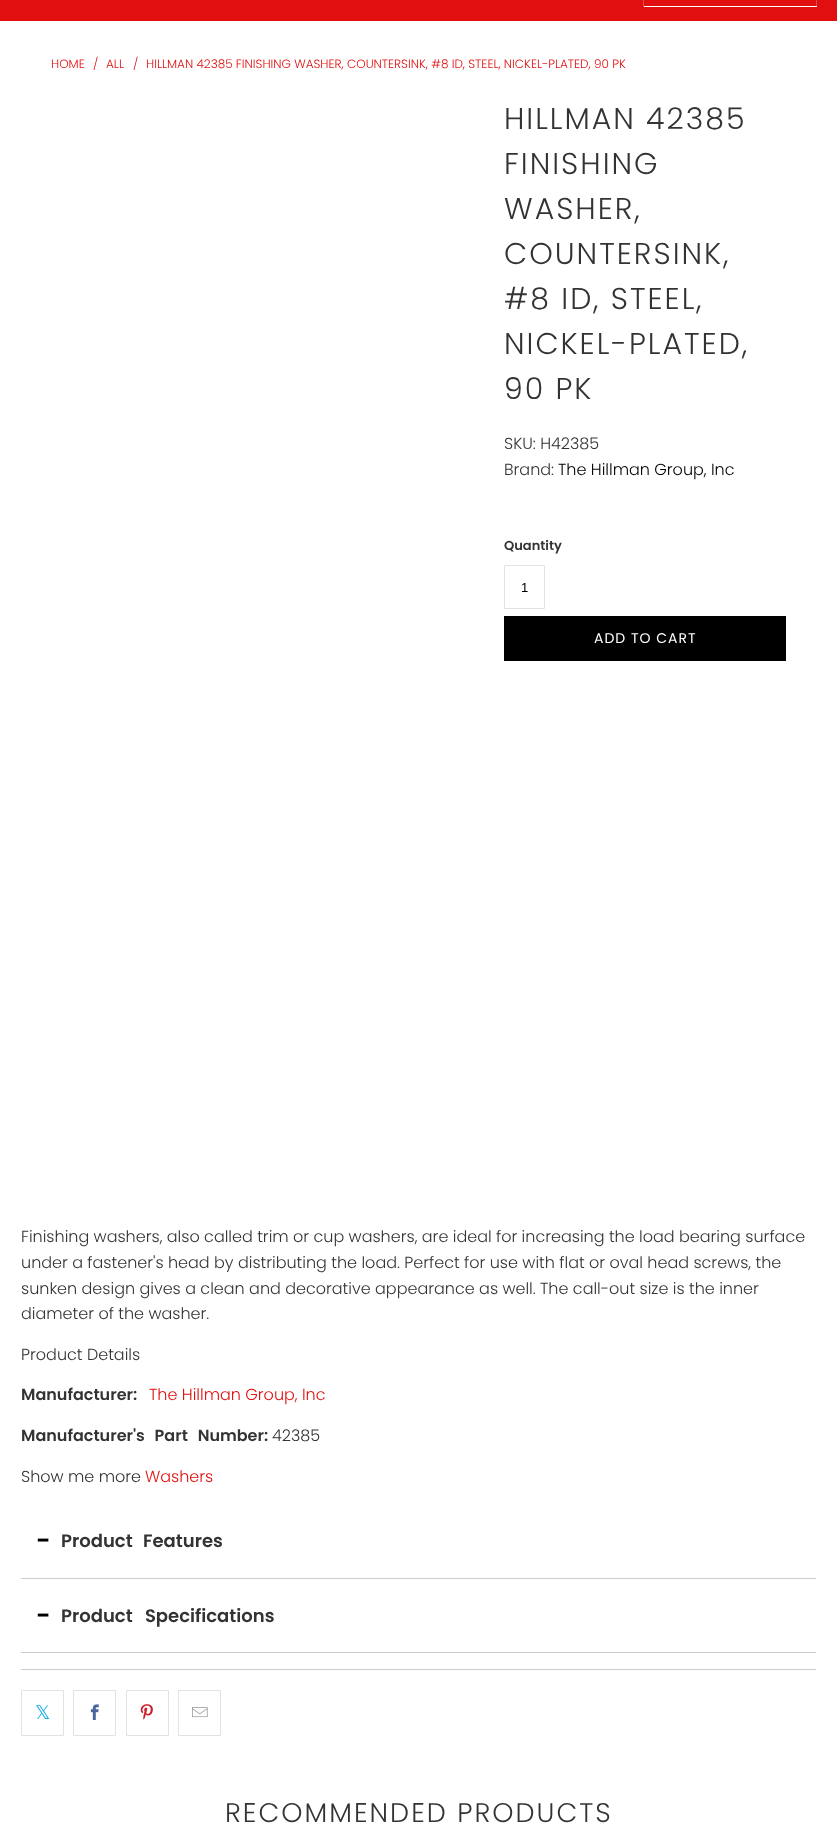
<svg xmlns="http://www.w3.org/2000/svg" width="837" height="1824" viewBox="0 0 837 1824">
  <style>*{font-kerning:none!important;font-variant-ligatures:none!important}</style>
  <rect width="100%" height="100%" fill="#fff"/>
  <path d="M0 0h837v21H0z" fill="#e10f0f"/>
  <path d="M816 0h1v7H816z" fill="#d54d4d"/>
  <path d="M643 6h174v1H643z" fill="#fff"/>
  <path d="M643 0h1v7H643z" fill="#d54d4d"/>
  <path d="M504.5 565.5h40v43H504.5z" fill="none" stroke="#e2e2e2"/>
  <path d="M504 616h282v45H504z" fill="#000"/>
  <path d="M21 1578h795v1H21z" fill="#ccc"/>
  <path d="M21 1652h795v1H21z" fill="#ccc"/>
  <path d="M21 1669h795v1H21z" fill="#ccc"/>
  <path d="M21.5 1690.5h42v45H21.5z" fill="none" stroke="#e2e2e2"/>
  <path d="M73.5 1690.5h42v45H73.5z" fill="none" stroke="#e2e2e2"/>
  <image x="90" y="1704" width="9" height="16" href="img/1.png"/>
  <path d="M126.5 1690.5h42v45H126.5z" fill="none" stroke="#e2e2e2"/>
  <image x="140" y="1704" width="13" height="16" href="img/2.png"/>
  <path d="M178.5 1690.5h42v45H178.5z" fill="none" stroke="#e2e2e2"/>
  <image x="192" y="1707" width="16" height="11" href="img/3.png"/>
  <g font-family="Poppins" font-size="12" font-weight="300" fill="#e10f0f">
    <text x="51" y="68">HOME</text>
    <text x="93" y="68">/</text>
    <text x="106" y="68">ALL</text>
    <text x="133" y="68">/</text>
    <text x="146" y="68">HILLMAN 42385 FINISHING WASHER, COUNTERSINK, #8 ID, STEEL, NICKEL-PLATED, 90 PK</text>
  </g>
  <g font-family="Poppins" font-size="30" font-weight="300" letter-spacing="2" fill="#333">
    <text x="504" y="129">HILLMAN 42385</text>
    <text x="504" y="174">FINISHING</text>
    <text x="504" y="219">WASHER,</text>
    <text x="504" y="264">COUNTERSINK,</text>
    <text x="504" y="309">#8 ID, STEEL,</text>
    <text x="504" y="354">NICKEL-PLATED,</text>
    <text x="504" y="399">90 PK</text>
  </g>
  <g font-family="Poppins" font-size="16" font-weight="300" fill="#333">
    <text x="504" y="449">SKU: H42385</text>
    <text x="504" y="475">Brand:</text>
  </g>
  <text x="558" y="475" font-family="Poppins" font-size="16" font-weight="300" fill="#000">The Hillman Group, Inc</text>
  <text x="504" y="550" font-family="Poppins" font-size="13" font-weight="600" fill="#333">Quantity</text>
  <text x="521" y="592" font-family="Liberation Sans" font-size="13" fill="#000">1</text>
  <text x="594" y="643" font-family="Poppins" font-size="14" letter-spacing="1" fill="#fff">ADD TO CART</text>
  <g font-family="Poppins" font-size="16" font-weight="300" fill="#333">
    <text x="21" y="1242">Finishing washers, also called trim or cup washers, are ideal for increasing the load bearing surface</text>
    <text x="21" y="1268">under a fastener's head by distributing the load. Perfect for use with flat or oval head screws, the</text>
    <text x="21" y="1294">sunken design gives a clean and decorative appearance as well. The call-out size is the inner</text>
    <text x="21" y="1319">diameter of the washer.</text>
    <text x="21" y="1360">Product Details</text>
  </g>
  <text x="21" y="1400" font-family="Poppins" font-size="16" font-weight="600" fill="#333">Manufacturer:</text>
  <text x="149" y="1400" font-family="Poppins" font-size="16" font-weight="300" fill="#e10f0f">The Hillman Group, Inc</text>
  <text x="21" y="1441" word-spacing="6" font-family="Poppins" font-size="16" font-weight="600" fill="#333">Manufacturer's Part Number:</text>
  <g font-family="Poppins" font-size="16" font-weight="300" fill="#333">
    <text x="272" y="1441">42385</text>
    <text x="21" y="1482">Show me more</text>
  </g>
  <text x="145" y="1482" font-family="Poppins" font-size="16" font-weight="300" fill="#e10f0f">Washers</text>
  <text x="36" y="1549" font-family="Poppins" font-size="25" font-weight="600" fill="#000">-</text>
  <text x="61" y="1547" word-spacing="6" font-family="Poppins" font-size="18" font-weight="600" fill="#333">Product Features</text>
  <text x="36" y="1624" font-family="Poppins" font-size="25" font-weight="600" fill="#000">-</text>
  <text x="61" y="1622" word-spacing="8" font-family="Poppins" font-size="18" font-weight="600" fill="#333">Product Specifications</text>
  <text x="35" y="1719" font-family="DejaVu Sans" font-size="19" fill="#09aeec">𝕏</text>
  <text x="225" y="1822" font-family="Poppins" font-size="27" font-weight="300" letter-spacing="2" fill="#333">RECOMMENDED PRODUCTS</text>
</svg>
